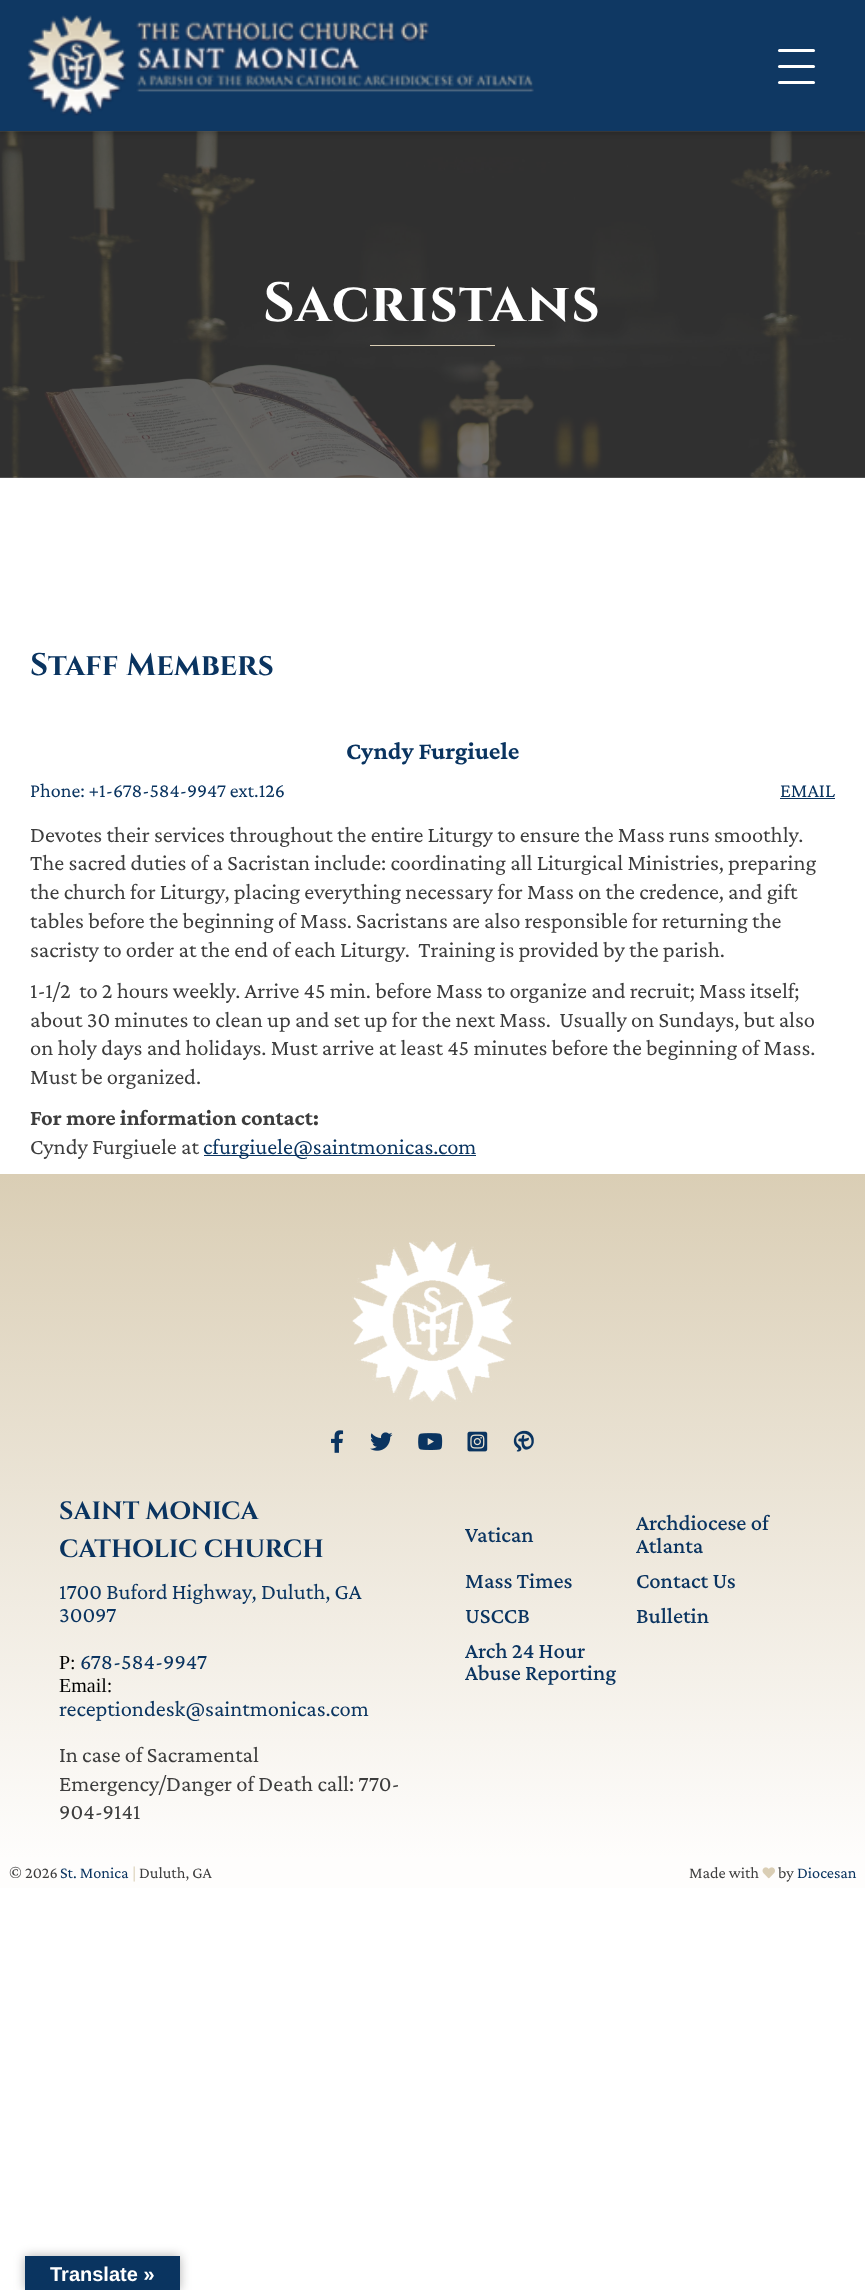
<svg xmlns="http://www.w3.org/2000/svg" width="865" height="2290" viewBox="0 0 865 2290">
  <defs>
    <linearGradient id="g1" gradientUnits="userSpaceOnUse" x1="432" y1="1174" x2="433" y2="1858"><stop offset="0" stop-color="#daceb5"/><stop offset="1" stop-color="#fefdfc"/></linearGradient>
  </defs>
  <rect width="100%" height="100%" fill="#fff"/>
  <path d="M0 131h865v347H0z" fill="#707070"/>
  <image x="0" y="131" width="865" height="347" href="img/2.png"/>
  <path d="M0 3h865v131H0z" fill="#00000029" filter="blur(2px)"/>
  <path d="M0 0h865v131H0z" fill="#0f3863"/>
  <image x="26" y="15" width="508" height="101" href="img/1.png"/>
  <rect x="778" y="49" width="37" height="3" rx="1.5" fill="#fff"/>
  <rect x="778" y="65" width="37" height="3" rx="1.5" fill="#fff"/>
  <rect x="778" y="81" width="37" height="3" rx="1.5" fill="#fff"/>
  <path d="M370 345h125v1H370z" fill="#daceb5"/>
  <path d="M780 798h55v1H780z" fill="#0a3460"/>
  <path d="M204 1155h272v1H204z" fill="#0a3460"/>
  <path d="M0 1174h865v684H0z" fill="url(#g1)"/>
  <image x="352" y="1241" width="161" height="161" href="img/3.png"/>
  <image x="331" y="1430" width="13" height="23" href="img/4.png"/>
  <image x="370" y="1432" width="23" height="19" href="img/5.png"/>
  <image x="418" y="1433" width="25" height="17" href="img/6.png"/>
  <image x="467" y="1431" width="21" height="21" href="img/7.png"/>
  <image x="513" y="1430" width="21" height="22" href="img/8.png"/>
  <path d="M0 1858h865v30H0z" fill="#fefdfc"/>
  <image x="762" y="1867" width="13" height="12" href="img/9.png"/>
  <path d="M25 2256h155v34H25z" fill="#0000004d" filter="blur(5.5px)"/>
  <path d="M25 2256h155v34H25z" fill="#0a3460"/>
  <text x="263" y="321" font-family="Cinzel" font-size="55" font-weight="bold" letter-spacing="1.6" fill="#fff">Sacristans</text>
  <text x="30" y="675" font-family="Cinzel" font-size="31.25" font-weight="bold" fill="#0a3460">Staff Members</text>
  <text x="346" y="759" font-family="Crimson Pro" font-size="25" font-weight="bold" fill="#0a3460">Cyndy Furgiuele</text>
  <g font-family="Crimson Pro" font-size="20" fill="#0a3460">
    <text x="30" y="797">Phone: +1-678-584-9947 ext.126</text>
    <text x="780" y="797">EMAIL</text>
  </g>
  <g font-family="Crimson Pro" font-size="22.5" fill="#3d3d3d">
    <text x="30" y="842">Devotes their services throughout the entire Liturgy to ensure the Mass runs smoothly.</text>
    <text x="30" y="870">The sacred duties of a Sacristan include: coordinating all Liturgical Ministries, preparing</text>
    <text x="30" y="899">the church for Liturgy, placing everything necessary for Mass on the credence, and gift</text>
    <text x="30" y="928">tables before the beginning of Mass. Sacristans are also responsible for returning the</text>
    <text x="30" y="957" xml:space="preserve">sacristy to order at the end of each Liturgy.  Training is provided by the parish.</text>
    <text x="30" y="998" xml:space="preserve">1-1/2  to 2 hours weekly. Arrive 45 min. before Mass to organize and recruit; Mass itself;</text>
    <text x="30" y="1027" xml:space="preserve">about 30 minutes to clean up and set up for the next Mass.  Usually on Sundays, but also</text>
    <text x="30" y="1055">on holy days and holidays. Must arrive at least 45 minutes before the beginning of Mass.</text>
    <text x="30" y="1084">Must be organized.</text>
  </g>
  <text x="30" y="1125" font-family="Crimson Pro" font-size="22.5" font-weight="bold" fill="#3d3d3d">For more information contact:</text>
  <text x="30" y="1154" font-family="Crimson Pro" font-size="22.5" fill="#3d3d3d">Cyndy Furgiuele at</text>
  <text x="203" y="1154" font-family="Crimson Pro" font-size="22.5" fill="#0a3460">cfurgiuele@saintmonicas.com</text>
  <g font-family="Cinzel" font-size="25" font-weight="bold" fill="#0a3460">
    <text x="59" y="1519">SAINT MONICA</text>
    <text x="59" y="1557">CATHOLIC CHURCH</text>
  </g>
  <g font-family="Crimson Pro" font-size="22.5" fill="#0a3460">
    <text x="59" y="1599">1700 Buford Highway, Duluth, GA</text>
    <text x="59" y="1622">30097</text>
  </g>
  <text x="59" y="1669" font-family="Liberation Serif" font-size="20" fill="#000">P:</text>
  <text x="80" y="1669" font-family="Crimson Pro" font-size="22.5" fill="#0a3460">678-584-9947</text>
  <text x="59" y="1692" font-family="Liberation Serif" font-size="20" fill="#000">Email:</text>
  <text x="59" y="1716" font-family="Crimson Pro" font-size="22.5" fill="#0a3460">receptiondesk@saintmonicas.com</text>
  <g font-family="Crimson Pro" font-size="22.5" fill="#3d3d3d">
    <text x="59" y="1762">In case of Sacramental</text>
    <text x="59" y="1791">Emergency/Danger of Death call: 770-</text>
    <text x="59" y="1819">904-9141</text>
  </g>
  <g font-family="Crimson Pro" font-size="22.5" font-weight="500" fill="#0a3460">
    <text x="465" y="1542">Vatican</text>
    <text x="636" y="1530">Archdiocese of</text>
    <text x="636" y="1553">Atlanta</text>
    <text x="465" y="1588">Mass Times</text>
    <text x="636" y="1588">Contact Us</text>
    <text x="465" y="1623">USCCB</text>
    <text x="636" y="1623">Bulletin</text>
    <text x="465" y="1658">Arch 24 Hour</text>
    <text x="465" y="1680">Abuse Reporting</text>
  </g>
  <text x="9" y="1878" font-family="Crimson Pro" font-size="16.25" fill="#3d3d3d">© 2026</text>
  <text x="60" y="1878" font-family="Crimson Pro" font-size="16.25" fill="#0a3460">St. Monica</text>
  <text x="132" y="1878" font-family="Crimson Pro" font-size="16.25" fill="#daceb5">|</text>
  <g font-family="Crimson Pro" font-size="16.25" fill="#3d3d3d">
    <text x="139" y="1878">Duluth, GA</text>
    <text x="689" y="1878">Made with</text>
    <text x="778" y="1878">by</text>
  </g>
  <text x="797" y="1878" font-family="Crimson Pro" font-size="16.25" fill="#0a3460">Diocesan</text>
  <text x="50" y="2281" font-family="Liberation Sans" font-size="20" font-weight="bold" fill="#fff">Translate »</text>
</svg>
